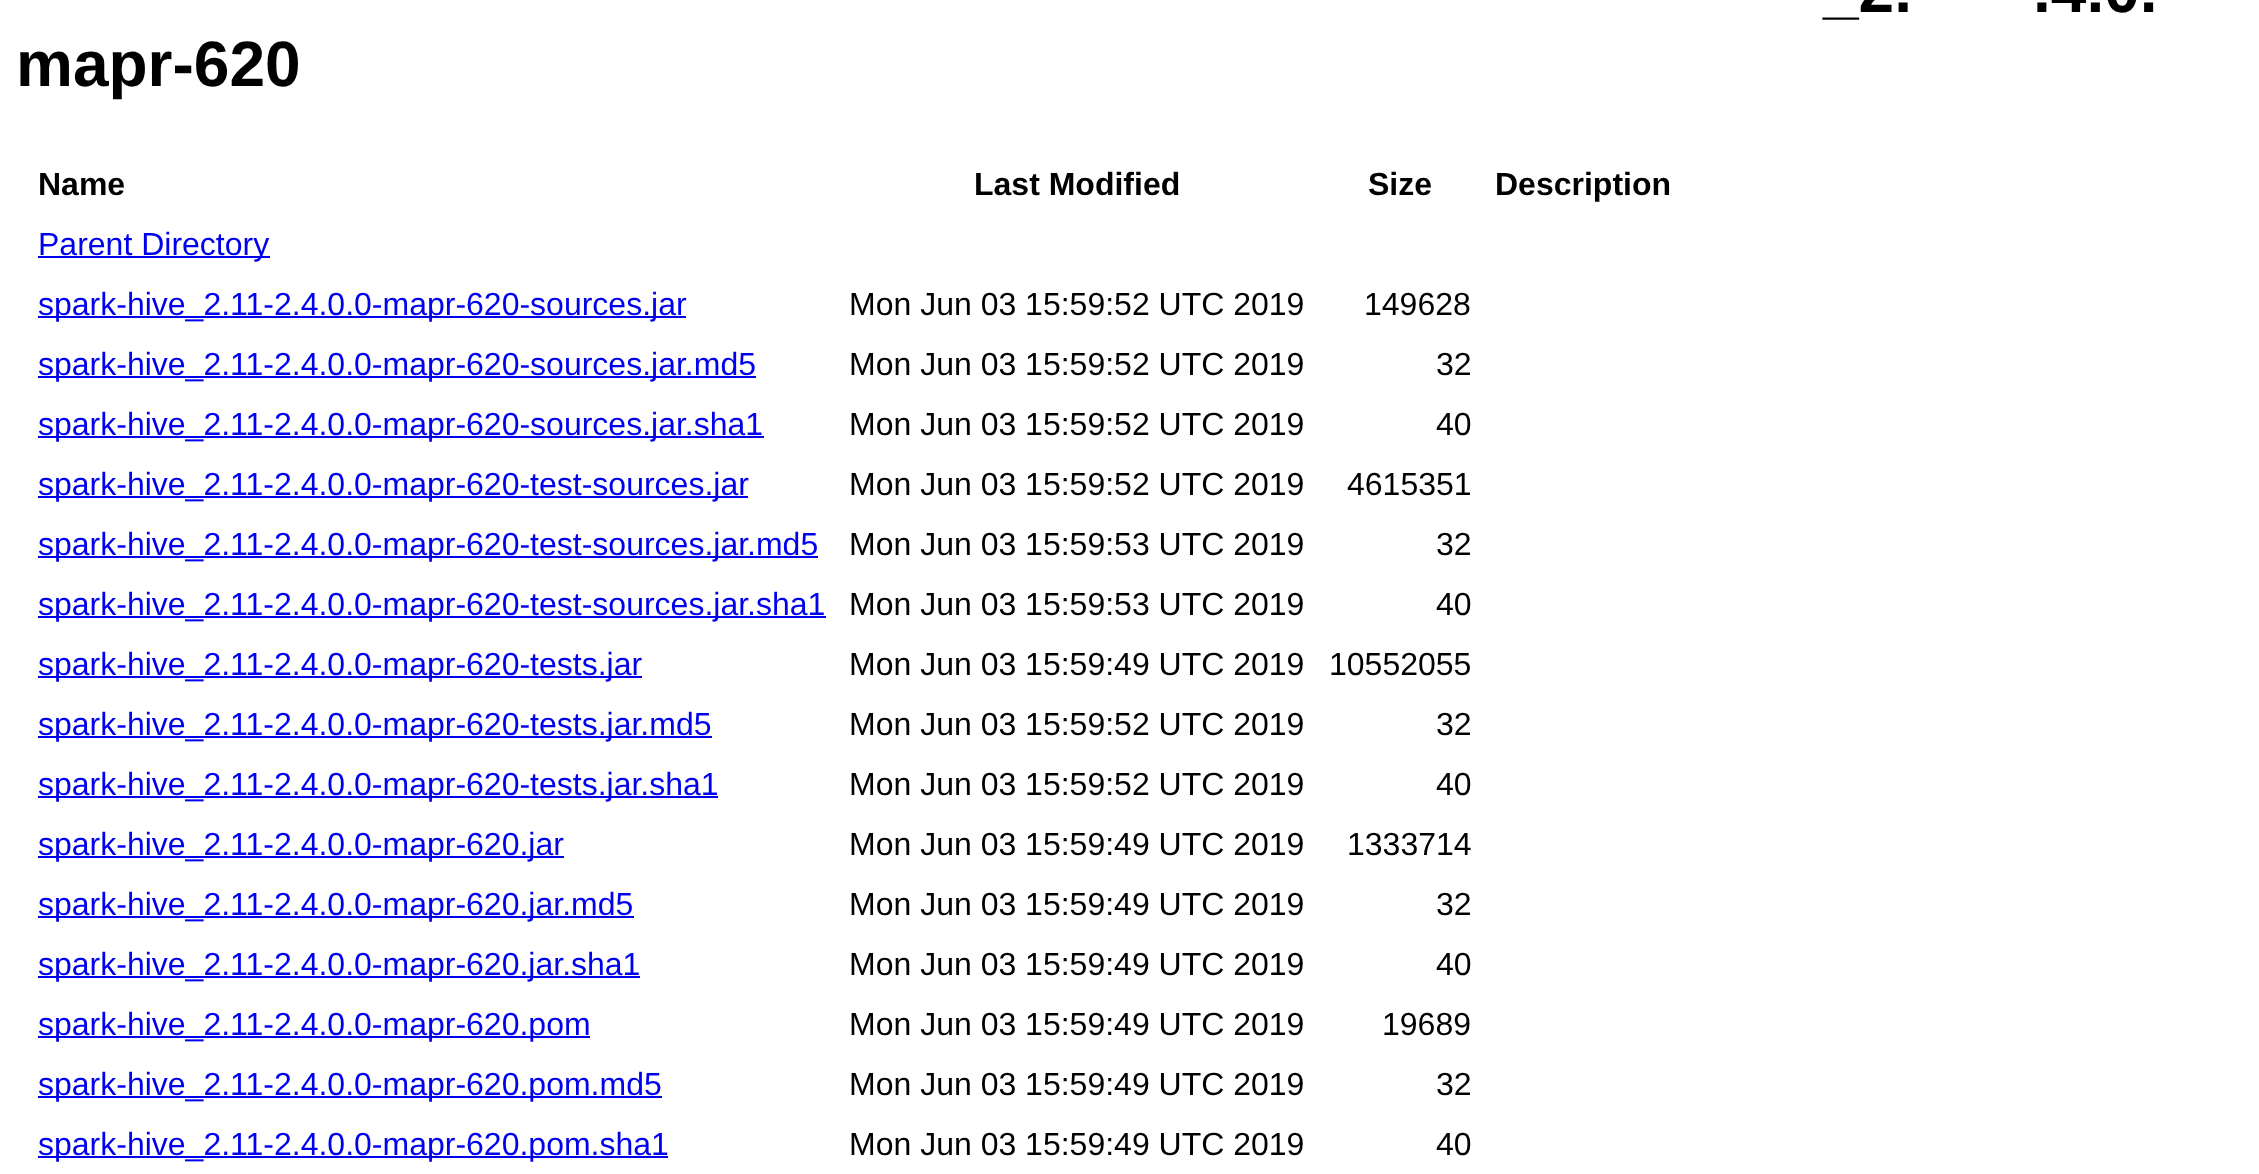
<svg xmlns="http://www.w3.org/2000/svg" width="2259" height="1174" viewBox="0 0 2259 1174">
  <rect width="100%" height="100%" fill="#fff"/>
  <path d="M38 256h232v2H38z" fill="#00e"/>
  <path d="M38 316h648v2H38z" fill="#00e"/>
  <path d="M38 376h718v2H38z" fill="#00e"/>
  <path d="M38 436h726v2H38z" fill="#00e"/>
  <path d="M38 496h710v2H38z" fill="#00e"/>
  <path d="M38 556h780v2H38z" fill="#00e"/>
  <path d="M38 616h788v2H38z" fill="#00e"/>
  <path d="M38 676h604v2H38z" fill="#00e"/>
  <path d="M38 736h674v2H38z" fill="#00e"/>
  <path d="M38 796h680v2H38z" fill="#00e"/>
  <path d="M38 856h526v2H38z" fill="#00e"/>
  <path d="M38 916h596v2H38z" fill="#00e"/>
  <path d="M38 976h602v2H38z" fill="#00e"/>
  <path d="M38 1036h552v2H38z" fill="#00e"/>
  <path d="M38 1096h624v2H38z" fill="#00e"/>
  <path d="M38 1156h630v2H38z" fill="#00e"/>
  <g font-family="Liberation Sans" font-size="64" font-weight="bold" fill="#000">
    <text x="1823" y="12">_2.</text>
    <text x="2033" y="12">.4.0.</text>
    <text x="16" y="86">mapr-620</text>
  </g>
  <g font-family="Liberation Sans" font-size="32" font-weight="bold" fill="#000">
    <text x="38" y="195">Name</text>
    <text x="974" y="195">Last Modified</text>
    <text x="1368" y="195">Size</text>
    <text x="1495" y="195">Description</text>
  </g>
  <g font-family="Liberation Sans" font-size="32" fill="#00e">
    <text x="38" y="255">Parent Directory</text>
    <text x="38" y="315">spark-hive_2.11-2.4.0.0-mapr-620-sources.jar</text>
  </g>
  <g font-family="Liberation Sans" font-size="32" fill="#000">
    <text x="849" y="315">Mon Jun 03 15:59:52 UTC 2019</text>
    <text x="1364" y="315">149628</text>
  </g>
  <text x="38" y="375" font-family="Liberation Sans" font-size="32" fill="#00e">spark-hive_2.11-2.4.0.0-mapr-620-sources.jar.md5</text>
  <g font-family="Liberation Sans" font-size="32" fill="#000">
    <text x="849" y="375">Mon Jun 03 15:59:52 UTC 2019</text>
    <text x="1436" y="375">32</text>
  </g>
  <text x="38" y="435" font-family="Liberation Sans" font-size="32" fill="#00e">spark-hive_2.11-2.4.0.0-mapr-620-sources.jar.sha1</text>
  <g font-family="Liberation Sans" font-size="32" fill="#000">
    <text x="849" y="435">Mon Jun 03 15:59:52 UTC 2019</text>
    <text x="1436" y="435">40</text>
  </g>
  <text x="38" y="495" font-family="Liberation Sans" font-size="32" fill="#00e">spark-hive_2.11-2.4.0.0-mapr-620-test-sources.jar</text>
  <g font-family="Liberation Sans" font-size="32" fill="#000">
    <text x="849" y="495">Mon Jun 03 15:59:52 UTC 2019</text>
    <text x="1347" y="495">4615351</text>
  </g>
  <text x="38" y="555" font-family="Liberation Sans" font-size="32" fill="#00e">spark-hive_2.11-2.4.0.0-mapr-620-test-sources.jar.md5</text>
  <g font-family="Liberation Sans" font-size="32" fill="#000">
    <text x="849" y="555">Mon Jun 03 15:59:53 UTC 2019</text>
    <text x="1436" y="555">32</text>
  </g>
  <text x="38" y="615" font-family="Liberation Sans" font-size="32" fill="#00e">spark-hive_2.11-2.4.0.0-mapr-620-test-sources.jar.sha1</text>
  <g font-family="Liberation Sans" font-size="32" fill="#000">
    <text x="849" y="615">Mon Jun 03 15:59:53 UTC 2019</text>
    <text x="1436" y="615">40</text>
  </g>
  <text x="38" y="675" font-family="Liberation Sans" font-size="32" fill="#00e">spark-hive_2.11-2.4.0.0-mapr-620-tests.jar</text>
  <g font-family="Liberation Sans" font-size="32" fill="#000">
    <text x="849" y="675">Mon Jun 03 15:59:49 UTC 2019</text>
    <text x="1329" y="675">10552055</text>
  </g>
  <text x="38" y="735" font-family="Liberation Sans" font-size="32" fill="#00e">spark-hive_2.11-2.4.0.0-mapr-620-tests.jar.md5</text>
  <g font-family="Liberation Sans" font-size="32" fill="#000">
    <text x="849" y="735">Mon Jun 03 15:59:52 UTC 2019</text>
    <text x="1436" y="735">32</text>
  </g>
  <text x="38" y="795" font-family="Liberation Sans" font-size="32" fill="#00e">spark-hive_2.11-2.4.0.0-mapr-620-tests.jar.sha1</text>
  <g font-family="Liberation Sans" font-size="32" fill="#000">
    <text x="849" y="795">Mon Jun 03 15:59:52 UTC 2019</text>
    <text x="1436" y="795">40</text>
  </g>
  <text x="38" y="855" font-family="Liberation Sans" font-size="32" fill="#00e">spark-hive_2.11-2.4.0.0-mapr-620.jar</text>
  <g font-family="Liberation Sans" font-size="32" fill="#000">
    <text x="849" y="855">Mon Jun 03 15:59:49 UTC 2019</text>
    <text x="1347" y="855">1333714</text>
  </g>
  <text x="38" y="915" font-family="Liberation Sans" font-size="32" fill="#00e">spark-hive_2.11-2.4.0.0-mapr-620.jar.md5</text>
  <g font-family="Liberation Sans" font-size="32" fill="#000">
    <text x="849" y="915">Mon Jun 03 15:59:49 UTC 2019</text>
    <text x="1436" y="915">32</text>
  </g>
  <text x="38" y="975" font-family="Liberation Sans" font-size="32" fill="#00e">spark-hive_2.11-2.4.0.0-mapr-620.jar.sha1</text>
  <g font-family="Liberation Sans" font-size="32" fill="#000">
    <text x="849" y="975">Mon Jun 03 15:59:49 UTC 2019</text>
    <text x="1436" y="975">40</text>
  </g>
  <text x="38" y="1035" font-family="Liberation Sans" font-size="32" fill="#00e">spark-hive_2.11-2.4.0.0-mapr-620.pom</text>
  <g font-family="Liberation Sans" font-size="32" fill="#000">
    <text x="849" y="1035">Mon Jun 03 15:59:49 UTC 2019</text>
    <text x="1382" y="1035">19689</text>
  </g>
  <text x="38" y="1095" font-family="Liberation Sans" font-size="32" fill="#00e">spark-hive_2.11-2.4.0.0-mapr-620.pom.md5</text>
  <g font-family="Liberation Sans" font-size="32" fill="#000">
    <text x="849" y="1095">Mon Jun 03 15:59:49 UTC 2019</text>
    <text x="1436" y="1095">32</text>
  </g>
  <text x="38" y="1155" font-family="Liberation Sans" font-size="32" fill="#00e">spark-hive_2.11-2.4.0.0-mapr-620.pom.sha1</text>
  <g font-family="Liberation Sans" font-size="32" fill="#000">
    <text x="849" y="1155">Mon Jun 03 15:59:49 UTC 2019</text>
    <text x="1436" y="1155">40</text>
  </g>
</svg>
